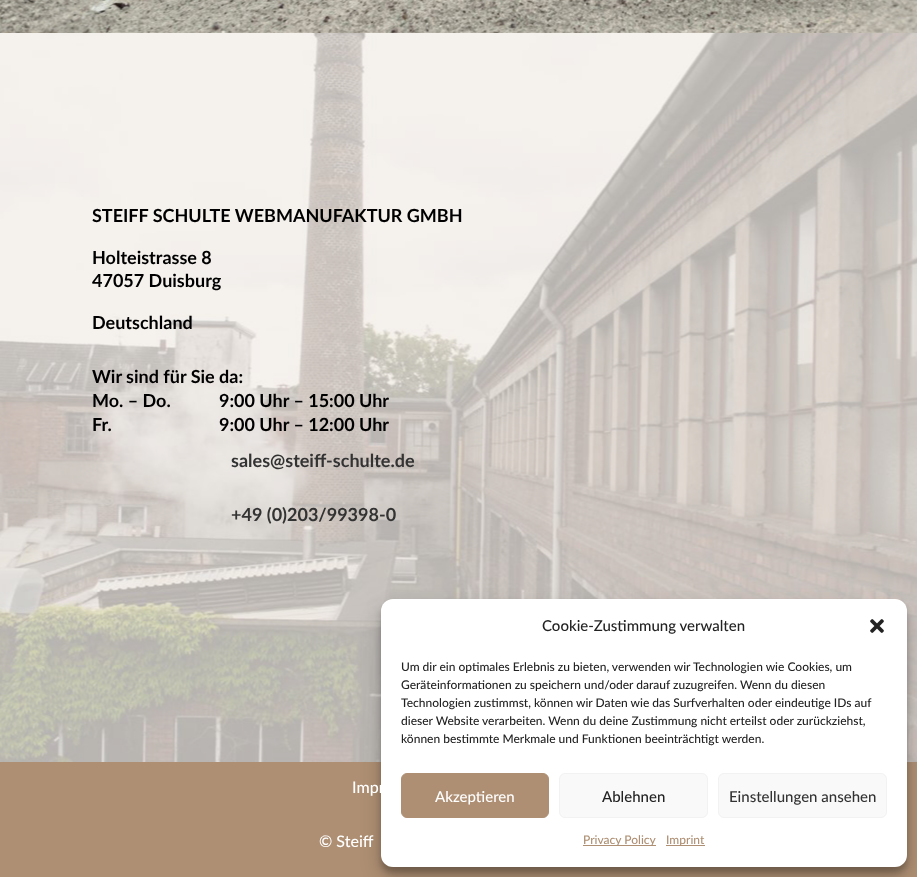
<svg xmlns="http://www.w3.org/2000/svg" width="917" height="877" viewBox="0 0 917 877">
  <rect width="100%" height="100%" fill="#fff"/>
  <image x="0" y="0" width="917" height="33" href="img/1.png"/>
  <path d="M0 33h917v729H0z" fill="#f3eee8"/>
  <image x="0" y="33" width="917" height="729" href="img/2.png"/>
  <path d="M0 762h917v115H0z" fill="#ae8f73"/>
  <rect x="381" y="605" width="526" height="268" rx="12" fill="#0000003b" filter="blur(3px)"/>
  <rect x="381" y="609" width="526" height="268" rx="12" fill="#00000030" filter="blur(10px)"/>
  <rect x="381" y="599" width="526" height="268" rx="12" fill="#fff"/>
  <image x="870" y="619" width="14" height="14" href="img/3.png"/>
  <rect x="401.5" y="773.5" width="147" height="44" rx="5.5" fill="#ae8f73" stroke="#ae8f73"/>
  <rect x="559.5" y="773.5" width="148" height="44" rx="5.5" fill="#f9f9f9" stroke="#f2f2f2"/>
  <rect x="718.5" y="773.5" width="168" height="44" rx="5.5" fill="#f9f9f9" stroke="#f2f2f2"/>
  <path d="M583 845h73v1H583z" fill="#ae8f73"/>
  <path d="M666 845h39v1H666z" fill="#ae8f73"/>
  <g font-family="Lato" font-size="18" font-weight="bold" fill="#000">
    <text x="92" y="222">STEIFF SCHULTE WEBMANUFAKTUR GMBH</text>
    <text x="92" y="264">Holteistrasse 8</text>
    <text x="92" y="287">47057 Duisburg</text>
    <text x="92" y="329">Deutschland</text>
    <text x="92" y="383">Wir sind für Sie da:</text>
    <text x="92" y="407">Mo. – Do.</text>
    <text x="219" y="407">9:00 Uhr – 15:00 Uhr</text>
    <text x="92" y="431">Fr.</text>
    <text x="219" y="431">9:00 Uhr – 12:00 Uhr</text>
  </g>
  <g font-family="Lato" font-size="18" font-weight="bold" fill="#333">
    <text x="231" y="467">sales@steiff-schulte.de</text>
    <text x="231" y="521">+49 (0)203/99398-0</text>
  </g>
  <g font-family="Lato" font-size="16" font-weight="500" fill="#fff">
    <text x="352" y="793">Impr</text>
    <text x="319" y="847">© Steiff</text>
  </g>
  <text x="542" y="631" font-family="Lato" font-size="15" font-weight="500" fill="#222">Cookie-Zustimmung verwalten</text>
  <g font-family="Lato" font-size="12" font-weight="500" fill="#222">
    <text x="401" y="671">Um dir ein optimales Erlebnis zu bieten, verwenden wir Technologien wie Cookies, um</text>
    <text x="401" y="689">Geräteinformationen zu speichern und/oder darauf zuzugreifen. Wenn du diesen</text>
    <text x="401" y="707">Technologien zustimmst, können wir Daten wie das Surfverhalten oder eindeutige IDs auf</text>
    <text x="401" y="725">dieser Website verarbeiten. Wenn du deine Zustimmung nicht erteilst oder zurückziehst,</text>
    <text x="401" y="743">können bestimmte Merkmale und Funktionen beeinträchtigt werden.</text>
  </g>
  <text x="435" y="802" font-family="Lato" font-size="15" font-weight="500" fill="#fff">Akzeptieren</text>
  <text x="602" y="802" font-family="Lato" font-size="15" font-weight="500" fill="#222">Ablehnen</text>
  <text x="729" y="802" font-family="Lato" font-size="15" font-weight="500" fill="#333">Einstellungen ansehen</text>
  <g font-family="Lato" font-size="12" font-weight="500" fill="#ae8f73">
    <text x="583" y="844">Privacy Policy</text>
    <text x="666" y="844">Imprint</text>
  </g>
</svg>
